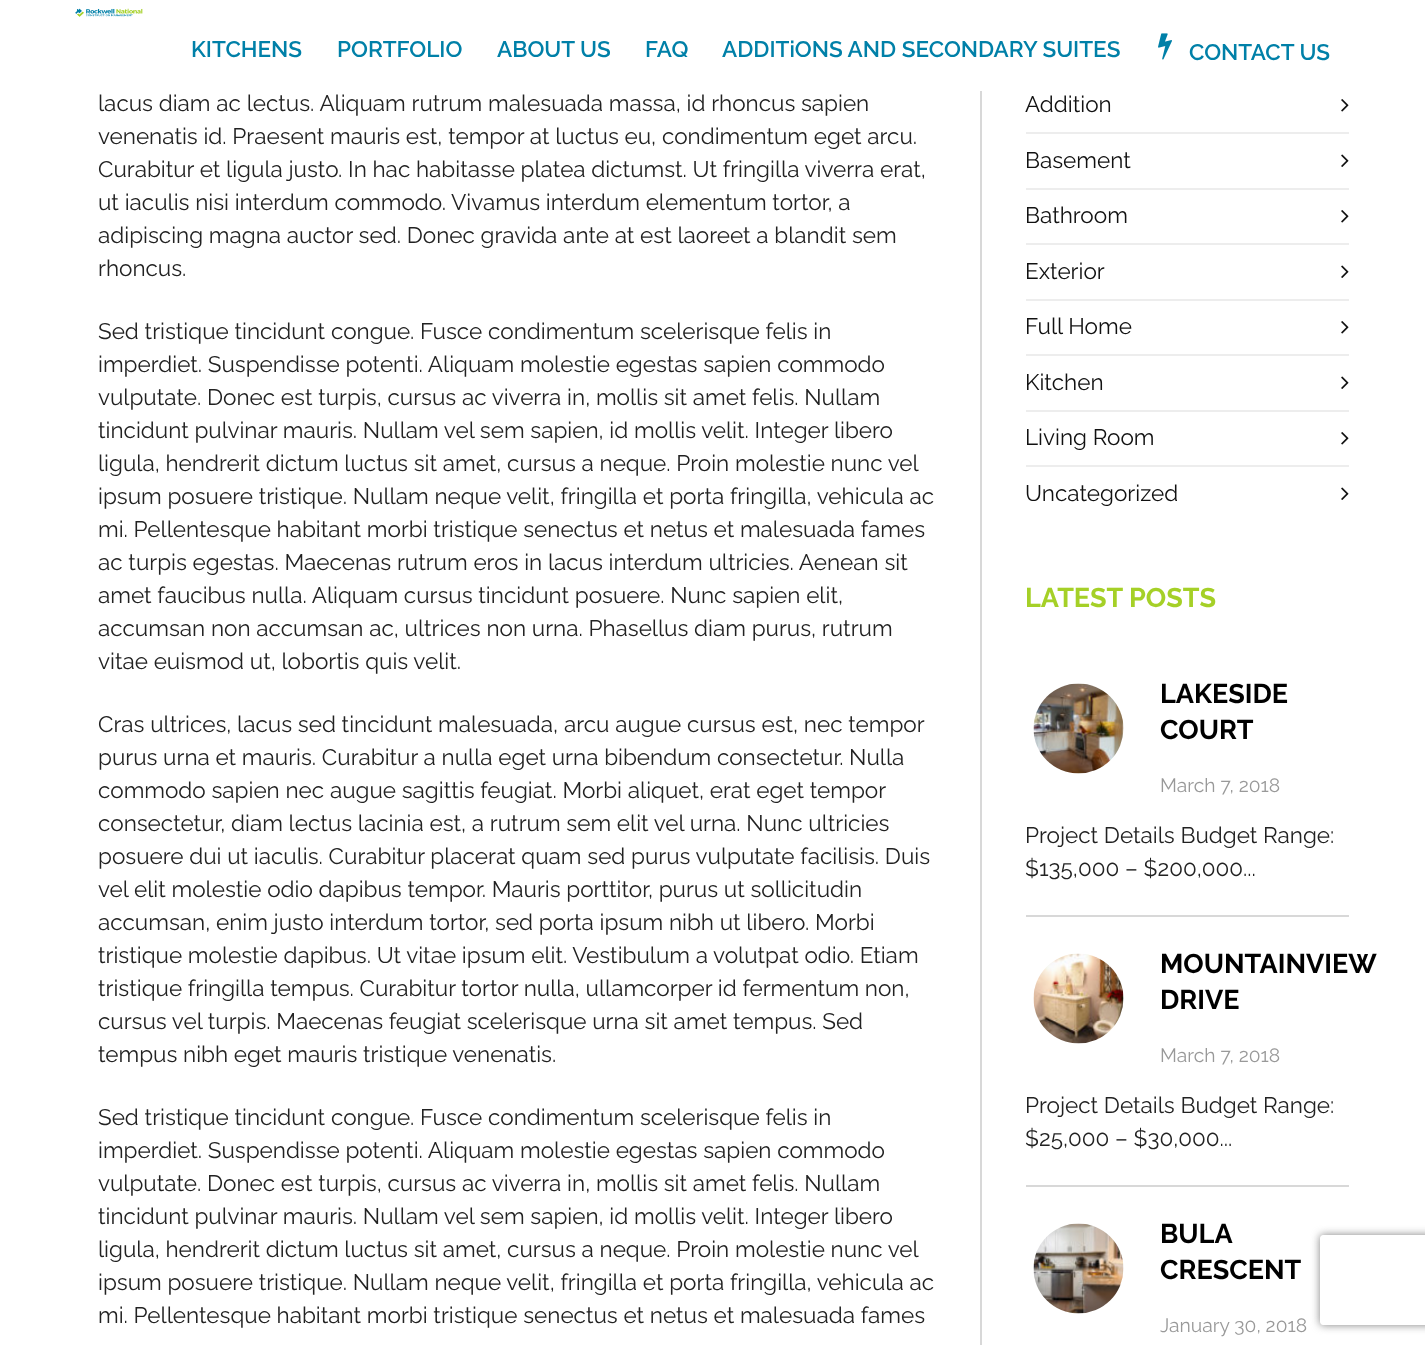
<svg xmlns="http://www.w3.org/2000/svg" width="1425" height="1345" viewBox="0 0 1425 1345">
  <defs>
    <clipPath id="clip1"><path d="M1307 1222H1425V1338H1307ZM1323 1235H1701C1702.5 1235 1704 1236.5 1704 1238V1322C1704 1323.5 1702.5 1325 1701 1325H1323C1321.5 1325 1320 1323.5 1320 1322V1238C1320 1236.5 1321.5 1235 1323 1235Z" clip-rule="evenodd"/></clipPath>
  </defs>
  <rect width="100%" height="100%" fill="#fff"/>
  <image x="75" y="8" width="68" height="9" href="img/1.png"/>
  <image x="1158" y="33" width="14" height="27" href="img/2.png"/>
  <path d="M980 91h2v1254H980z" fill="#d8d8d8"/>
  <image x="1341" y="99" width="8" height="13" href="img/3.png"/>
  <path d="M1026 132h323v2H1026z" fill="#ededed"/>
  <image x="1341" y="154" width="8" height="13" href="img/4.png"/>
  <path d="M1026 188h323v2H1026z" fill="#ededed"/>
  <image x="1341" y="210" width="8" height="13" href="img/3.png"/>
  <path d="M1026 243h323v2H1026z" fill="#ededed"/>
  <image x="1341" y="265" width="8" height="13" href="img/4.png"/>
  <path d="M1026 299h323v2H1026z" fill="#ededed"/>
  <image x="1341" y="321" width="8" height="13" href="img/3.png"/>
  <path d="M1026 354h323v2H1026z" fill="#ededed"/>
  <image x="1341" y="376" width="8" height="13" href="img/4.png"/>
  <path d="M1026 410h323v2H1026z" fill="#ededed"/>
  <image x="1341" y="432" width="8" height="13" href="img/3.png"/>
  <path d="M1026 465h323v2H1026z" fill="#ededed"/>
  <image x="1341" y="487" width="8" height="13" href="img/4.png"/>
  <path d="M1026 915h323v2H1026z" fill="#d8d8d8"/>
  <image x="1033" y="683" width="91" height="91" href="img/5.png"/>
  <path d="M1026 1185h323v2H1026z" fill="#d8d8d8"/>
  <image x="1033" y="953" width="91" height="91" href="img/6.png"/>
  <image x="1033" y="1223" width="91" height="91" href="img/7.png"/>
  <g clip-path="url(#clip1)">
    <rect x="1320" y="1235" width="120" height="90" rx="3" fill="#808080" filter="blur(4px)"/>
  </g>
  <g font-family="Raleway" font-size="22.5" font-weight="600" fill="#0080a8">
    <text x="191" y="57">KITCHENS</text>
    <text x="337" y="57">PORTFOLIO</text>
    <text x="497" y="57">ABOUT US</text>
    <text x="645" y="57">FAQ</text>
    <text x="722" y="57">ADDITiONS AND SECONDARY SUITES</text>
    <text x="1189" y="60">CONTACT US</text>
  </g>
  <g font-family="Raleway" font-size="22.5" fill="#222">
    <text x="98" y="111">lacus diam ac lectus. Aliquam rutrum malesuada massa, id rhoncus sapien</text>
    <text x="98" y="144">venenatis id. Praesent mauris est, tempor at luctus eu, condimentum eget arcu.</text>
    <text x="98" y="177">Curabitur et ligula justo. In hac habitasse platea dictumst. Ut fringilla viverra erat,</text>
    <text x="98" y="210">ut iaculis nisi interdum commodo. Vivamus interdum elementum tortor, a</text>
    <text x="98" y="243">adipiscing magna auctor sed. Donec gravida ante at est laoreet a blandit sem</text>
    <text x="98" y="276">rhoncus.</text>
    <text x="98" y="339">Sed tristique tincidunt congue. Fusce condimentum scelerisque felis in</text>
    <text x="98" y="372">imperdiet. Suspendisse potenti. Aliquam molestie egestas sapien commodo</text>
    <text x="98" y="405">vulputate. Donec est turpis, cursus ac viverra in, mollis sit amet felis. Nullam</text>
    <text x="98" y="438">tincidunt pulvinar mauris. Nullam vel sem sapien, id mollis velit. Integer libero</text>
    <text x="98" y="471">ligula, hendrerit dictum luctus sit amet, cursus a neque. Proin molestie nunc vel</text>
    <text x="98" y="504">ipsum posuere tristique. Nullam neque velit, fringilla et porta fringilla, vehicula ac</text>
    <text x="98" y="537">mi. Pellentesque habitant morbi tristique senectus et netus et malesuada fames</text>
    <text x="98" y="570">ac turpis egestas. Maecenas rutrum eros in lacus interdum ultricies. Aenean sit</text>
    <text x="98" y="603">amet faucibus nulla. Aliquam cursus tincidunt posuere. Nunc sapien elit,</text>
    <text x="98" y="636">accumsan non accumsan ac, ultrices non urna. Phasellus diam purus, rutrum</text>
    <text x="98" y="669">vitae euismod ut, lobortis quis velit.</text>
    <text x="98" y="732">Cras ultrices, lacus sed tincidunt malesuada, arcu augue cursus est, nec tempor</text>
    <text x="98" y="765">purus urna et mauris. Curabitur a nulla eget urna bibendum consectetur. Nulla</text>
    <text x="98" y="798">commodo sapien nec augue sagittis feugiat. Morbi aliquet, erat eget tempor</text>
    <text x="98" y="831">consectetur, diam lectus lacinia est, a rutrum sem elit vel urna. Nunc ultricies</text>
    <text x="98" y="864">posuere dui ut iaculis. Curabitur placerat quam sed purus vulputate facilisis. Duis</text>
    <text x="98" y="897">vel elit molestie odio dapibus tempor. Mauris porttitor, purus ut sollicitudin</text>
    <text x="98" y="930">accumsan, enim justo interdum tortor, sed porta ipsum nibh ut libero. Morbi</text>
    <text x="98" y="963">tristique molestie dapibus. Ut vitae ipsum elit. Vestibulum a volutpat odio. Etiam</text>
    <text x="98" y="996">tristique fringilla tempus. Curabitur tortor nulla, ullamcorper id fermentum non,</text>
    <text x="98" y="1029">cursus vel turpis. Maecenas feugiat scelerisque urna sit amet tempus. Sed</text>
    <text x="98" y="1062">tempus nibh eget mauris tristique venenatis.</text>
    <text x="98" y="1125">Sed tristique tincidunt congue. Fusce condimentum scelerisque felis in</text>
    <text x="98" y="1158">imperdiet. Suspendisse potenti. Aliquam molestie egestas sapien commodo</text>
    <text x="98" y="1191">vulputate. Donec est turpis, cursus ac viverra in, mollis sit amet felis. Nullam</text>
    <text x="98" y="1224">tincidunt pulvinar mauris. Nullam vel sem sapien, id mollis velit. Integer libero</text>
    <text x="98" y="1257">ligula, hendrerit dictum luctus sit amet, cursus a neque. Proin molestie nunc vel</text>
    <text x="98" y="1290">ipsum posuere tristique. Nullam neque velit, fringilla et porta fringilla, vehicula ac</text>
    <text x="98" y="1323">mi. Pellentesque habitant morbi tristique senectus et netus et malesuada fames</text>
  </g>
  <g font-family="Raleway" font-size="22.5" fill="#111">
    <text x="1025" y="112">Addition</text>
    <text x="1025" y="168">Basement</text>
    <text x="1025" y="223">Bathroom</text>
    <text x="1025" y="279">Exterior</text>
    <text x="1025" y="334">Full Home</text>
    <text x="1025" y="390">Kitchen</text>
    <text x="1025" y="445">Living Room</text>
    <text x="1025" y="501">Uncategorized</text>
  </g>
  <text x="1025" y="607" font-family="Raleway" font-size="27" font-weight="bold" fill="#a5d027">LATEST POSTS</text>
  <g font-family="Raleway" font-size="27" font-weight="bold" fill="#000">
    <text x="1160" y="703">LAKESIDE</text>
    <text x="1160" y="739">COURT</text>
  </g>
  <text x="1160" y="792" font-family="Raleway" font-size="19.25" fill="#999">March 7, 2018</text>
  <g font-family="Raleway" font-size="22.5" fill="#222">
    <text x="1025" y="843">Project Details Budget Range:</text>
    <text x="1025" y="876">$135,000 – $200,000...</text>
  </g>
  <g font-family="Raleway" font-size="27" font-weight="bold" fill="#000">
    <text x="1160" y="973">MOUNTAINVIEW</text>
    <text x="1160" y="1009">DRIVE</text>
  </g>
  <text x="1160" y="1062" font-family="Raleway" font-size="19.25" fill="#999">March 7, 2018</text>
  <g font-family="Raleway" font-size="22.5" fill="#222">
    <text x="1025" y="1113">Project Details Budget Range:</text>
    <text x="1025" y="1146">$25,000 – $30,000...</text>
  </g>
  <g font-family="Raleway" font-size="27" font-weight="bold" fill="#000">
    <text x="1160" y="1243">BULA</text>
    <text x="1160" y="1279">CRESCENT</text>
  </g>
  <text x="1160" y="1332" font-family="Raleway" font-size="19.25" fill="#999">January 30, 2018</text>
</svg>
